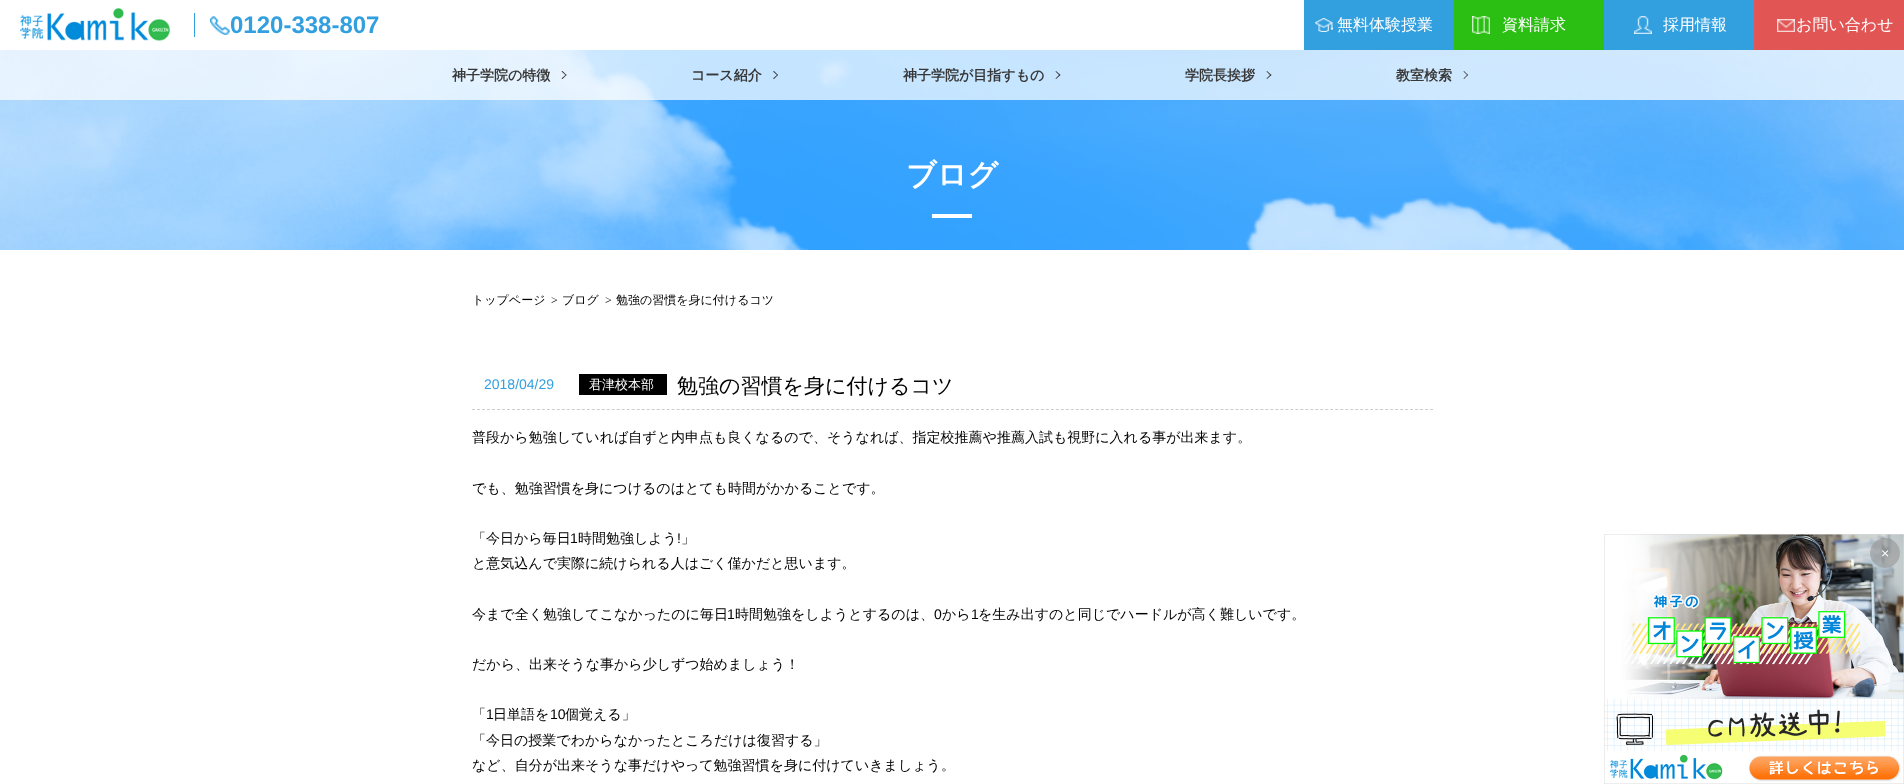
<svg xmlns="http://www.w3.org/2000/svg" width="1904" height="784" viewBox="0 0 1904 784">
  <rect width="100%" height="100%" fill="#fff"/>
  <image x="20" y="7" width="150" height="34" href="img/1.png"/>
  <image x="210" y="16" width="20" height="19" href="img/2.png"/>
  <path d="M194 13h1v24H194z" fill="#329fdf"/>
  <path d="M1304 0h150v50H1304z" fill="#329fdf"/>
  <image x="1315" y="18" width="18" height="14" href="img/3.png"/>
  <path d="M1454 0h150v50H1454z" fill="#2cbf13"/>
  <image x="1472" y="16" width="18" height="18" href="img/4.png"/>
  <path d="M1604 0h150v50H1604z" fill="#329fdf"/>
  <image x="1634" y="16" width="18" height="18" href="img/5.png"/>
  <path d="M1754 0h150v50H1754z" fill="#e15554"/>
  <image x="1777" y="19" width="18" height="13" href="img/6.png"/>
  <image x="0" y="50" width="1904" height="200" href="img/7.png"/>
  <path d="M0 50h1904v50H0z" fill="#ffffffb3"/>
  <path d="M561.5 71.5L562.5 71L566.5 75L566 75.5Z" fill="#333"/>
  <path d="M561.5 78.5L566 74.5L566.5 75L562.5 79Z" fill="#333"/>
  <path d="M773 71.5L774 71L778 75L777.5 75.5Z" fill="#333"/>
  <path d="M773 78.5L777.5 74.5L778 75L774 79Z" fill="#333"/>
  <path d="M1055.5 71.5L1056 71L1060.5 75L1059.5 75.5Z" fill="#333"/>
  <path d="M1055.5 78.5L1059.5 74.5L1060.5 75L1056 79Z" fill="#333"/>
  <path d="M1266.5 71.5L1267 71L1271.5 75L1270.5 75.5Z" fill="#333"/>
  <path d="M1266.5 78.5L1270.5 74.5L1271.5 75L1267 79Z" fill="#333"/>
  <path d="M1463.5 71.5L1464 71L1468 75L1467.5 75.5Z" fill="#333"/>
  <path d="M1463.5 78.5L1467.5 74.5L1468 75L1464 79Z" fill="#333"/>
  <path d="M932 214h40v4H932z" fill="#fff"/>
  <path d="M472 409.5H1433" fill="none" stroke="#ccc" stroke-dasharray="3 1.99"/>
  <path d="M579 374h88v21H579z" fill="#000"/>
  <image x="1604" y="534" width="300" height="250" href="img/8.png"/>
  <circle cx="1885" cy="553" r="15" fill="#8b8b8b82"/>
  <text x="230" y="33" font-family="Liberation Sans" font-size="24" font-weight="bold" fill="#329fdf">0120-338-807</text>
  <g font-family="WenQuanYi Zen Hei" font-size="16" font-weight="500" fill="#fff">
    <text x="1337" y="30">無料体験授業</text>
    <text x="1502" y="30">資料請求</text>
    <text x="1663" y="30">採用情報</text>
    <text x="1796" y="30">お問い合わせ</text>
  </g>
  <g font-family="WenQuanYi Zen Hei" font-size="14" font-weight="bold" fill="#373737">
    <text x="452" y="80">神子学院の特徴</text>
    <text x="691" y="80">コース紹介</text>
    <text x="903" y="80">神子学院が目指すもの</text>
    <text x="1185" y="80">学院長挨拶</text>
    <text x="1396" y="80">教室検索</text>
  </g>
  <text x="906" y="185" font-family="WenQuanYi Zen Hei" font-size="30" font-weight="bold" fill="#fff">ブログ</text>
  <text x="472" y="304" font-family="WenQuanYi Zen Hei" font-size="12" font-weight="500" fill="#000">トップページ</text>
  <text x="551" y="304" font-family="Liberation Serif" font-size="12" fill="#000">&gt;</text>
  <text x="562" y="304" font-family="WenQuanYi Zen Hei" font-size="12" font-weight="500" fill="#000">ブログ</text>
  <text x="605" y="304" font-family="Liberation Serif" font-size="12" fill="#000">&gt;</text>
  <text x="616" y="304" font-family="WenQuanYi Zen Hei" font-size="12" font-weight="500" fill="#000">勉強の習慣を身に付けるコツ</text>
  <text x="484" y="389" font-family="Liberation Sans" font-size="14" fill="#329fdf">2018/04/29</text>
  <text x="589" y="389" font-family="WenQuanYi Zen Hei" font-size="13" font-weight="500" fill="#fff">君津校本部</text>
  <text x="677" y="393" font-family="WenQuanYi Zen Hei" font-size="21" font-weight="500" fill="#000">勉強の習慣を身に付けるコツ</text>
  <g font-family="WenQuanYi Zen Hei" font-size="14" font-weight="500" fill="#000">
    <text x="472" y="442">普段から勉強していれば自ずと内申点も良くなるので、そうなれば、指定校推薦や推薦入試も視野に入れる事が出来ます。</text>
    <text x="472" y="493">でも、勉強習慣を身につけるのはとても時間がかかることです。</text>
    <text x="472" y="543">「今日から毎日</text>
  </g>
  <text x="570" y="543" font-family="Liberation Sans" font-size="14" fill="#000">1</text>
  <text x="578" y="543" font-family="WenQuanYi Zen Hei" font-size="14" font-weight="500" fill="#000">時間勉強しよう</text>
  <text x="677" y="543" font-family="Liberation Sans" font-size="14" fill="#000">!</text>
  <g font-family="WenQuanYi Zen Hei" font-size="14" font-weight="500" fill="#000">
    <text x="681" y="543">」</text>
    <text x="472" y="568">と意気込んで実際に続けられる人はごく僅かだと思います。</text>
    <text x="472" y="619">今まで全く勉強してこなかったのに毎日</text>
  </g>
  <text x="727" y="619" font-family="Liberation Sans" font-size="14" fill="#000">1</text>
  <text x="735" y="619" font-family="WenQuanYi Zen Hei" font-size="14" font-weight="500" fill="#000">時間勉強をしようとするのは、</text>
  <text x="934" y="619" font-family="Liberation Sans" font-size="14" fill="#000">0</text>
  <text x="942" y="619" font-family="WenQuanYi Zen Hei" font-size="14" font-weight="500" fill="#000">から</text>
  <text x="971" y="619" font-family="Liberation Sans" font-size="14" fill="#000">1</text>
  <g font-family="WenQuanYi Zen Hei" font-size="14" font-weight="500" fill="#000">
    <text x="978" y="619">を生み出すのと同じでハードルが高く難しいです。</text>
    <text x="472" y="669">だから、出来そうな事から少しずつ始めましょう！</text>
    <text x="472" y="719">「</text>
  </g>
  <text x="486" y="719" font-family="Liberation Sans" font-size="14" fill="#000">1</text>
  <text x="493" y="719" font-family="WenQuanYi Zen Hei" font-size="14" font-weight="500" fill="#000">日単語を</text>
  <text x="550" y="719" font-family="Liberation Sans" font-size="14" fill="#000">10</text>
  <g font-family="WenQuanYi Zen Hei" font-size="14" font-weight="500" fill="#000">
    <text x="565" y="719">個覚える」</text>
    <text x="472" y="745">「今日の授業でわからなかったところだけは復習する」</text>
    <text x="472" y="770">など、自分が出来そうな事だけやって勉強習慣を身に付けていきましょう。</text>
  </g>
  <text x="1881" y="558" font-family="Liberation Sans" font-size="14" fill="#fff">×</text>
</svg>
